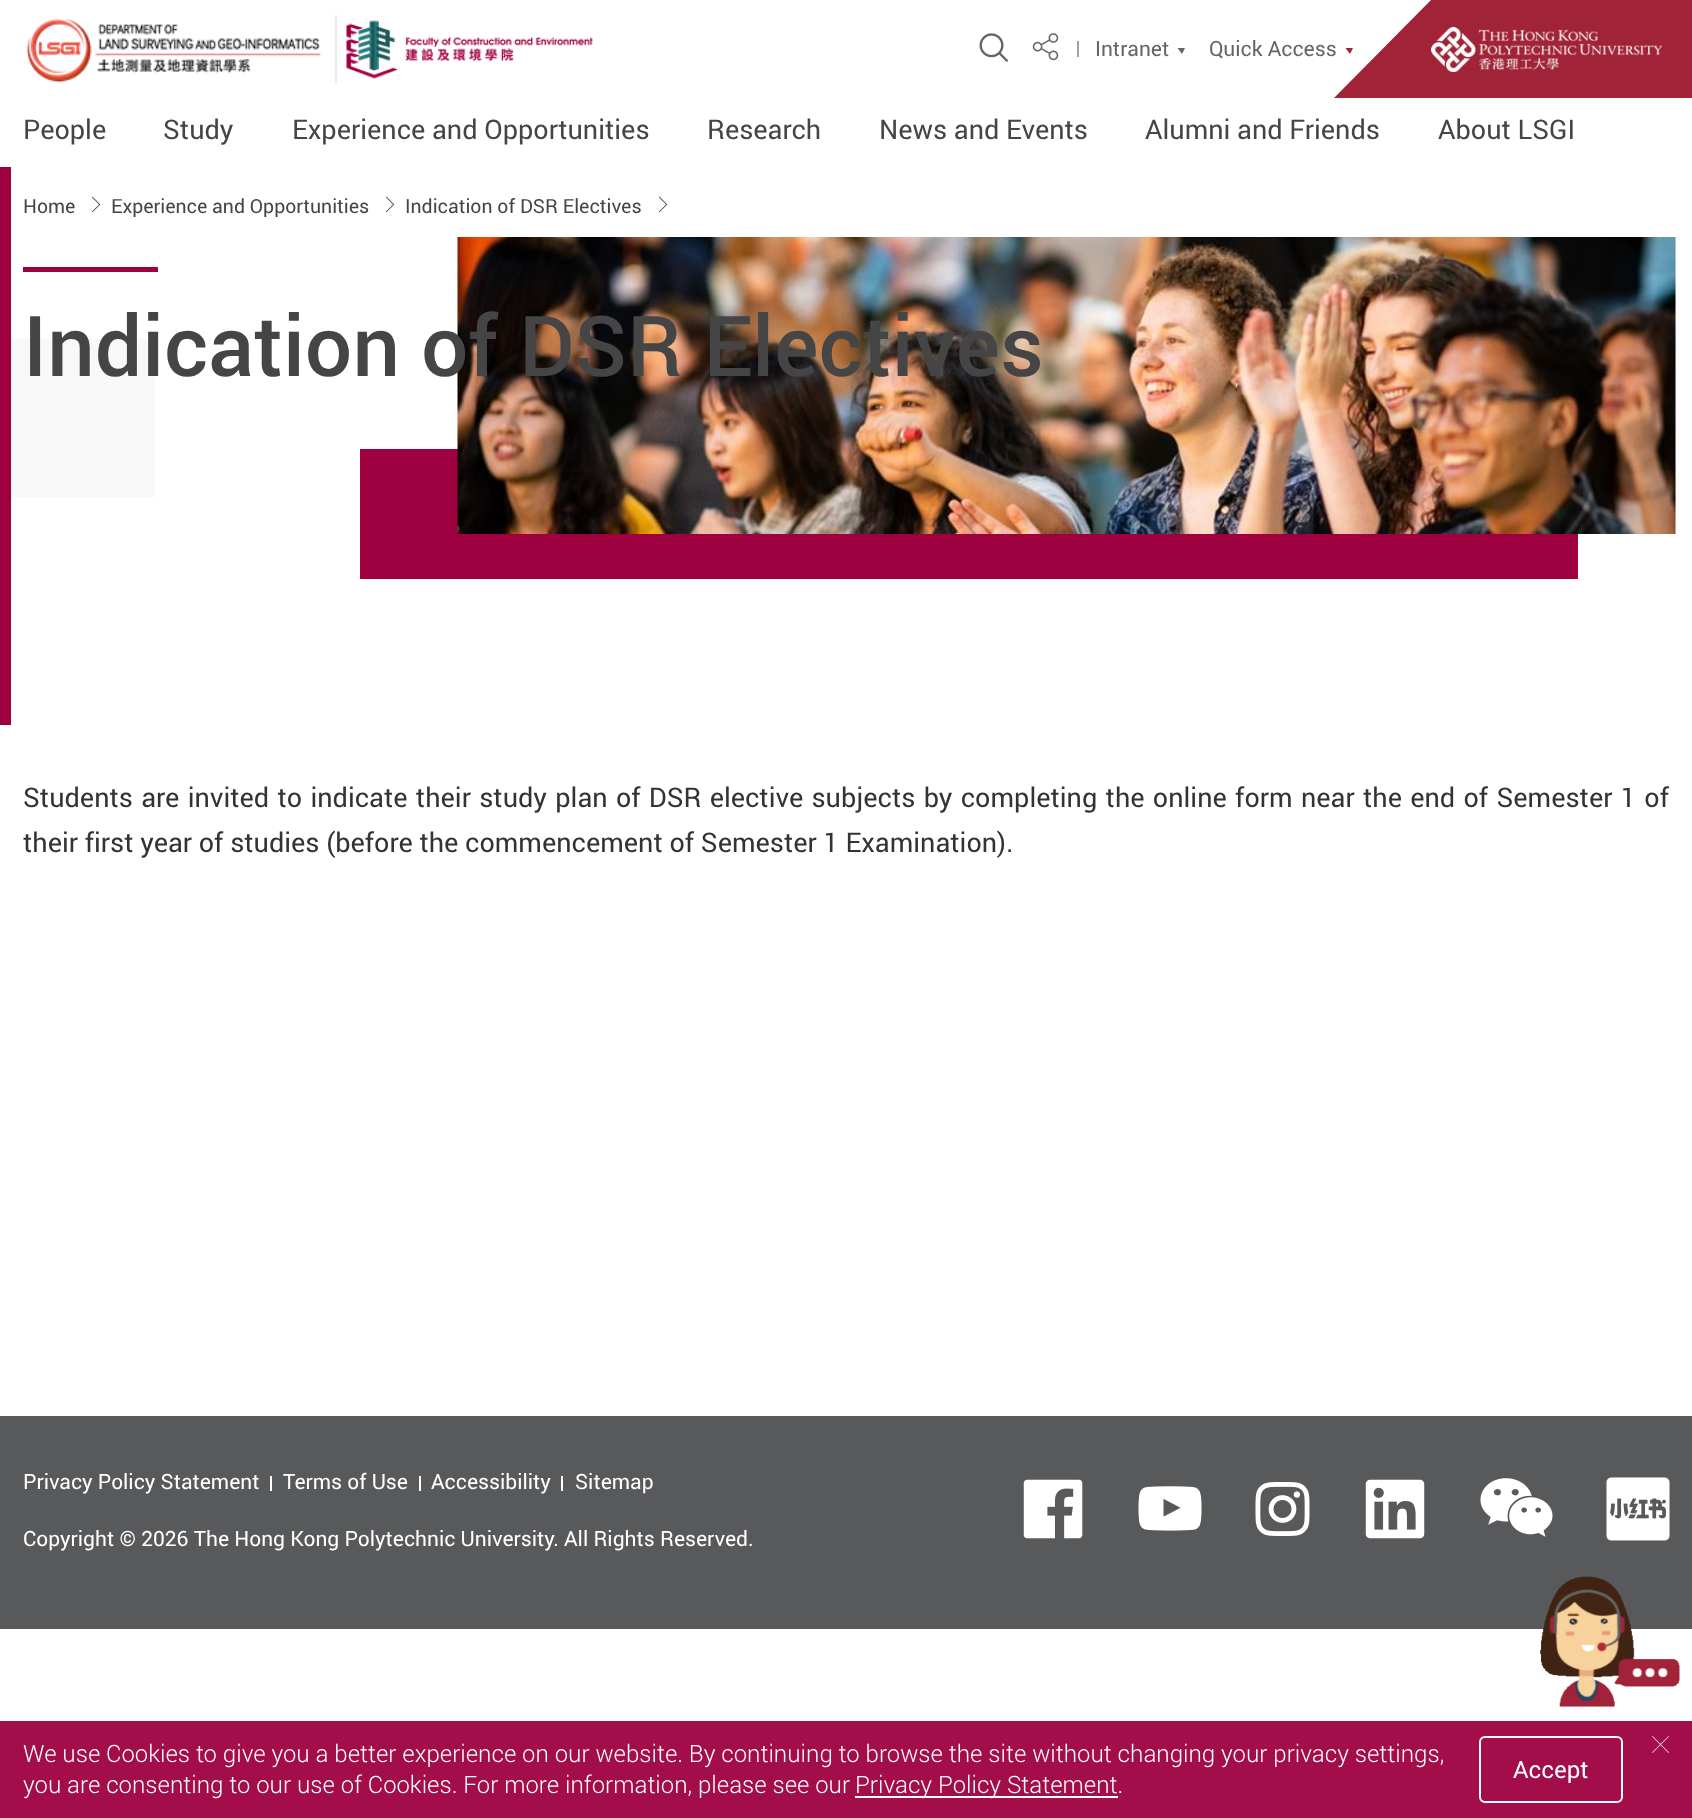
<svg xmlns="http://www.w3.org/2000/svg" width="1692" height="1818" viewBox="0 0 1692 1818">
  <rect width="100%" height="100%" fill="#fff"/>
  <image x="26" y="18" width="296" height="65" href="img/1.png"/>
  <path d="M335 15h2v69H335z" fill="#ebebeb"/>
  <image x="346" y="20" width="247" height="59" href="img/2.png"/>
  <image x="979" y="33" width="29" height="29" href="img/3.png"/>
  <image x="1032" y="33" width="27" height="28" href="img/4.png"/>
  <path d="M1077 41h2v16H1077z" fill="#a3a3a3"/>
  <path d="M1177.5 48H1185L1182 54Z" fill="#666"/>
  <path d="M1345.5 48H1353L1350 54Z" fill="#a02337"/>
  <image x="92" y="196" width="9" height="17" href="img/6.png"/>
  <image x="386" y="196" width="9" height="17" href="img/6.png"/>
  <image x="659" y="196" width="9" height="17" href="img/6.png"/>
  <path d="M0 167h11v558H0z" fill="#9e0040"/>
  <path d="M23 267h135v5H23z" fill="#9e0040"/>
  <path d="M1675 237h1v297H1675z" fill="#f1f1f1"/>
  <path d="M360 449h1218v130H360z" fill="#9e0040"/>
  <image x="457" y="237" width="1219" height="297" href="img/7.png"/>
  <path d="M11 339h144v158H11z" fill="#f8f8f8"/>
  <path d="M0 1416h1692v213H0z" fill="#58595b"/>
  <path d="M270 1476h2v15H270z" fill="#fff"/>
  <path d="M419 1476h2v15H419z" fill="#fff"/>
  <path d="M561 1476h2v15H561z" fill="#fff"/>
  <image x="1023" y="1479" width="60" height="60" href="img/8.png"/>
  <image x="1138" y="1486" width="64" height="45" href="img/9.png"/>
  <image x="1255" y="1482" width="55" height="54" href="img/10.png"/>
  <image x="1365" y="1479" width="60" height="60" href="img/11.png"/>
  <image x="1480" y="1478" width="73" height="59" href="img/12.png"/>
  <image x="1606" y="1477" width="64" height="64" href="img/13.png"/>
  <image x="1540" y="1576" width="140" height="131" href="img/14.png"/>
  <path d="M0 1721h1692v97H0z" fill="#a30d4a"/>
  <path d="M855 1796h263v2H855z" fill="#fff"/>
  <rect x="1480" y="1737" width="142" height="65" rx="5" fill="none" stroke="#fff" stroke-width="2"/>
  <image x="1652" y="1736" width="17" height="17" href="img/15.png"/>
  <g font-family="Roboto" font-size="21" fill="#666">
    <text x="1095" y="56">Intranet</text>
    <text x="1209" y="56">Quick Access</text>
  </g>
  <path d="M1431 0H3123L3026 98H1334Z" fill="#a02337"/>
  <image x="1431" y="27" width="231" height="45" href="img/5.png"/>
  <g font-family="Roboto" font-size="27" fill="#454545">
    <text x="23" y="139">People</text>
    <text x="163" y="139">Study</text>
    <text x="292" y="139">Experience and Opportunities</text>
    <text x="707" y="139">Research</text>
    <text x="879" y="139">News and Events</text>
    <text x="1145" y="139">Alumni and Friends</text>
    <text x="1438" y="139">About LSGI</text>
  </g>
  <g font-family="Roboto" font-size="19.5" fill="#454545">
    <text x="23" y="213">Home</text>
    <text x="111" y="213">Experience and Opportunities</text>
    <text x="405" y="213">Indication of DSR Electives</text>
  </g>
  <text x="23" y="376" font-family="Roboto" font-size="84" font-weight="500" fill="#454545">Indication of DSR Electives</text>
  <g font-family="Roboto" font-size="27" fill="#333">
    <text x="23" y="807" word-spacing="1.6">Students are invited to indicate their study plan of DSR elective subjects by completing the online form near the end of Semester 1 of</text>
    <text x="23" y="852">their first year of studies (before the commencement of Semester 1 Examination).</text>
  </g>
  <g font-family="Roboto" font-size="21" fill="#fff">
    <text x="23" y="1489">Privacy Policy Statement</text>
    <text x="283" y="1489">Terms of Use</text>
    <text x="431" y="1489">Accessibility</text>
    <text x="575" y="1489">Sitemap</text>
    <text x="23" y="1546">Copyright © 2026 The Hong Kong Polytechnic University. All Rights Reserved.</text>
  </g>
  <g font-family="Roboto" font-size="24" font-weight="300" fill="#fff">
    <text x="23" y="1762">We use Cookies to give you a better experience on our website. By continuing to browse the site without changing your privacy settings,</text>
    <text x="23" y="1793">you are consenting to our use of Cookies. For more information, please see our</text>
    <text x="855" y="1793">Privacy Policy Statement.</text>
  </g>
  <text x="1513" y="1778" font-family="Roboto" font-size="24" fill="#fff">Accept</text>
</svg>
